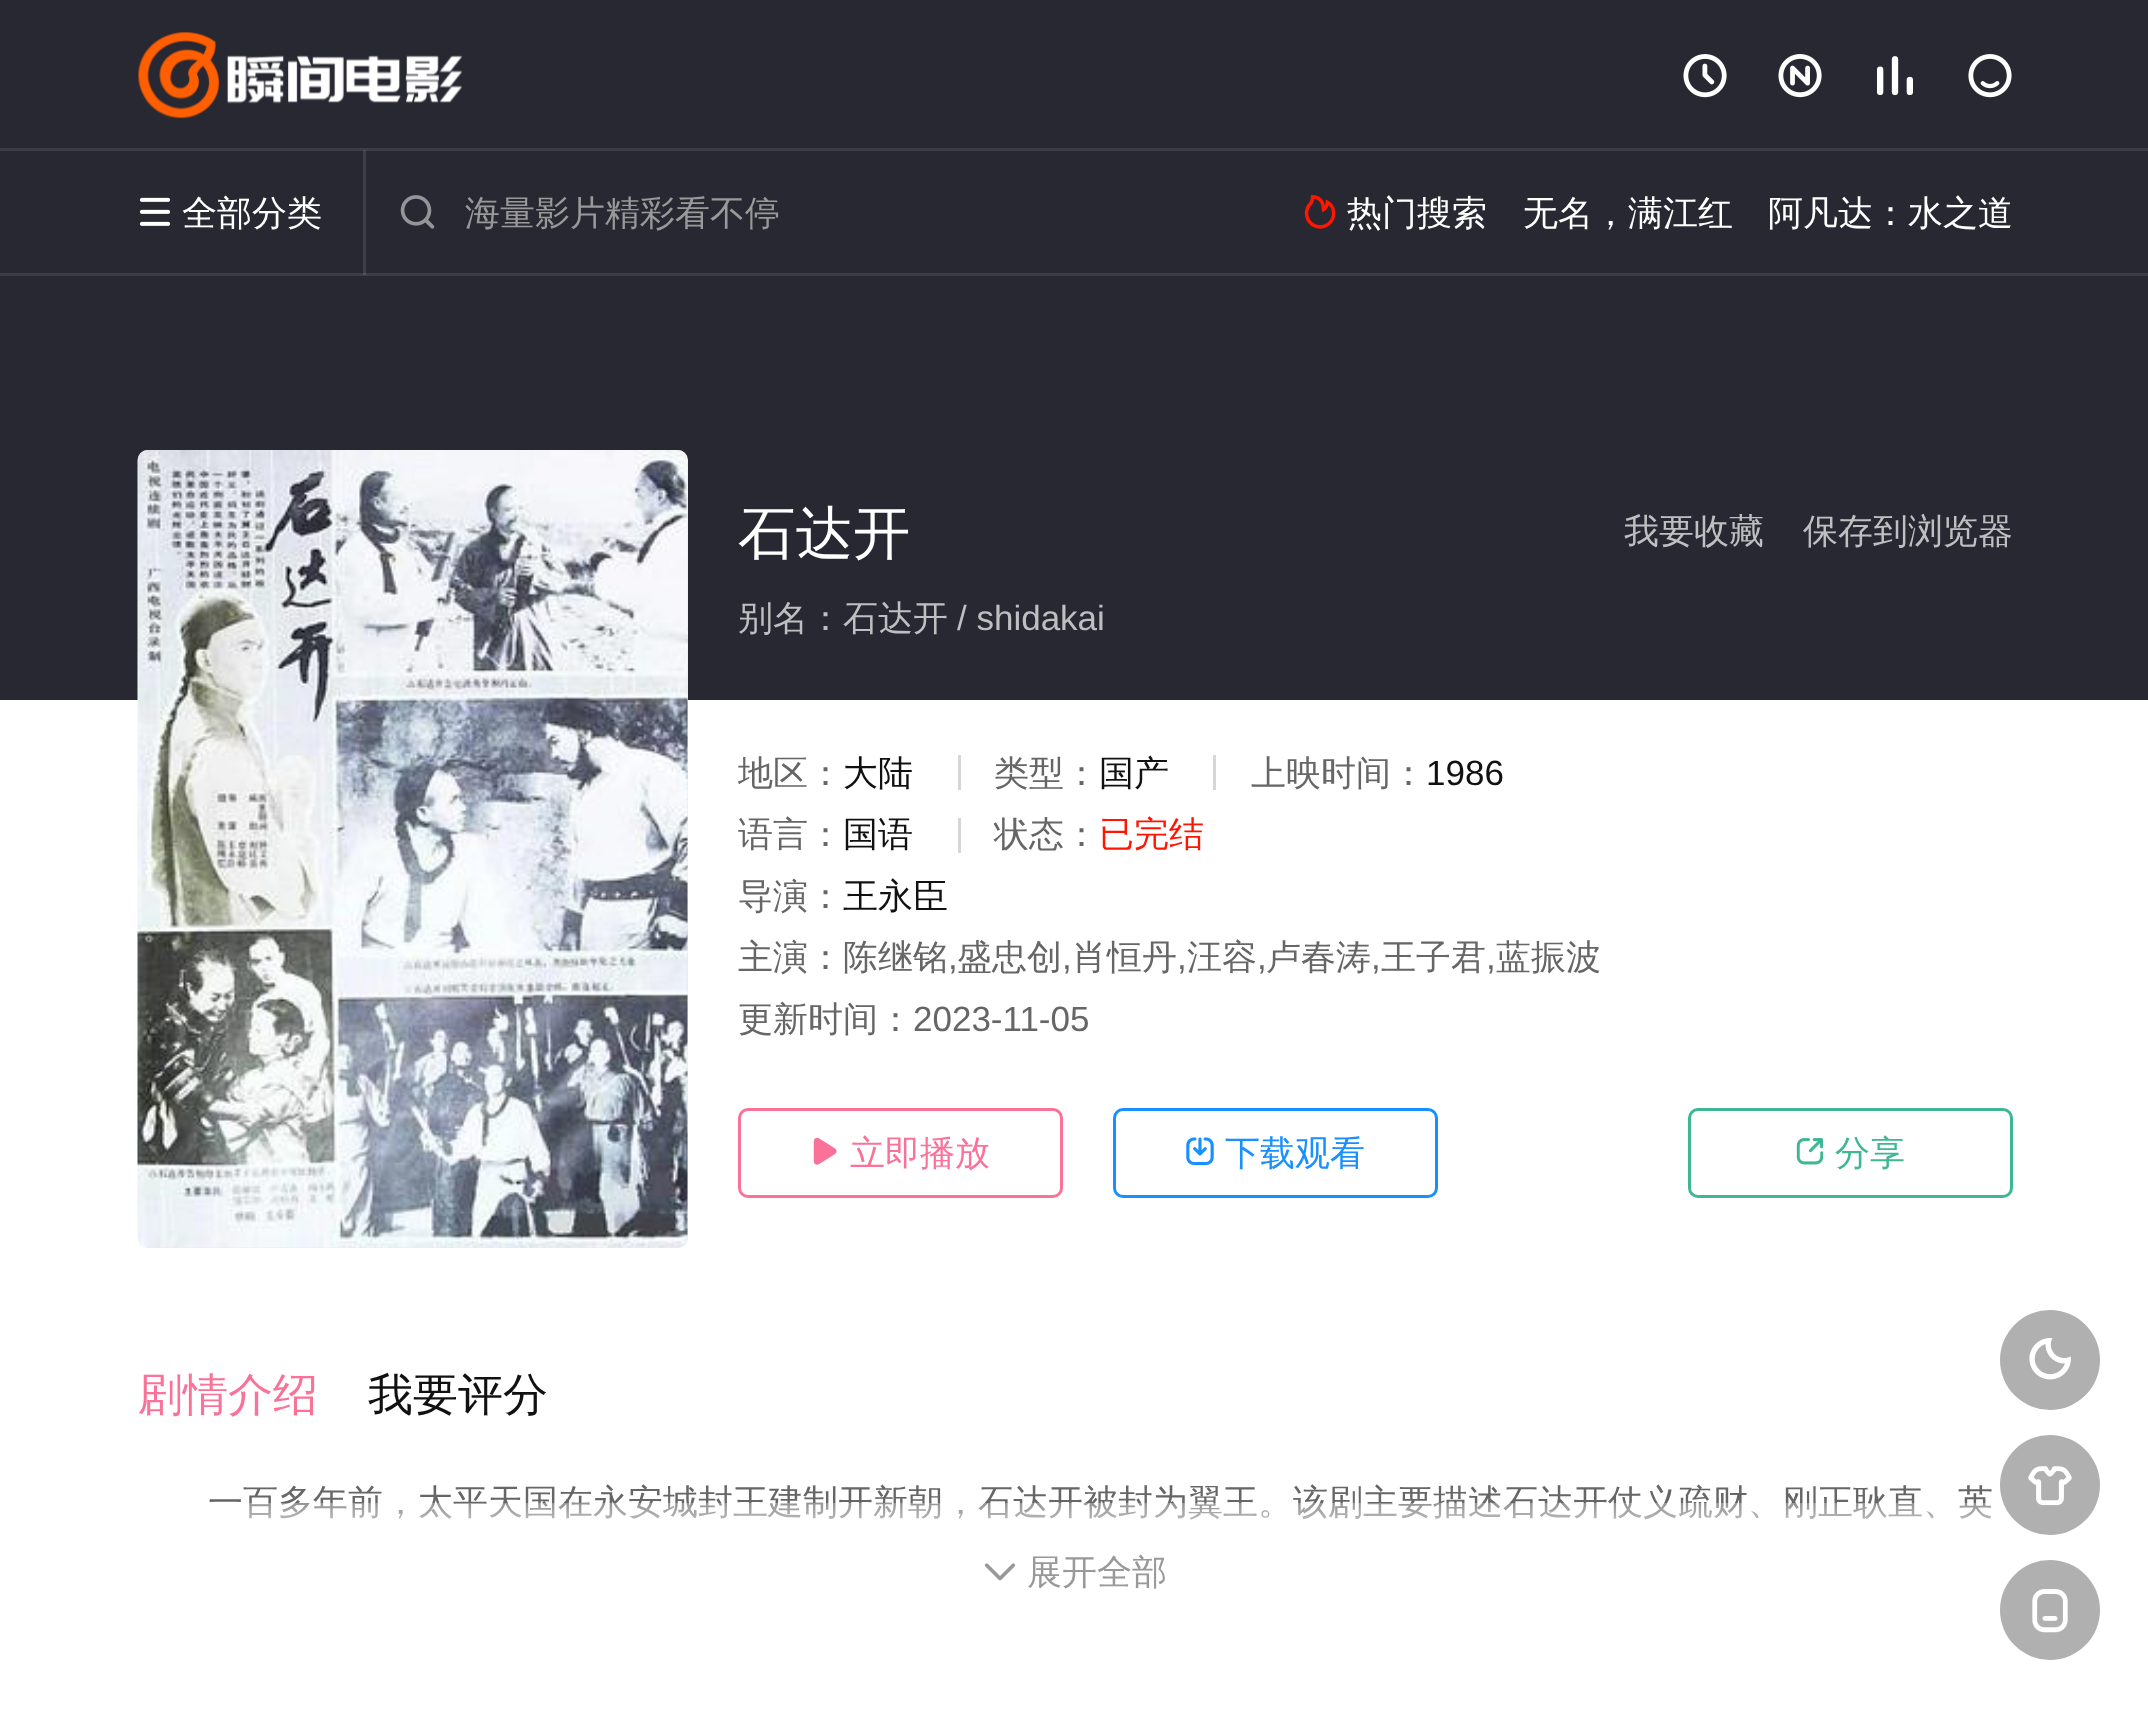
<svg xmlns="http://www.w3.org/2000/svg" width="2148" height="1722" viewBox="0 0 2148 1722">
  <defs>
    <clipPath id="clip1"><path d="M738 750h1275v50H738z"/></clipPath>
    <linearGradient id="g1" gradientUnits="userSpaceOnUse" x1="1075" y1="1503" x2="1075" y2="1553"><stop offset="0" stop-color="#fff" stop-opacity="0.3"/><stop offset="1" stop-color="#fff"/></linearGradient>
  </defs>
  <rect width="100%" height="100%" fill="#fff"/>
  <path d="M0 0h2148v700H0z" fill="#282832"/>
  <image x="138" y="32" width="325" height="87" href="img/1.png"/>
  <image x="1683" y="54" width="44" height="44" href="img/2.png"/>
  <image x="1778" y="54" width="44" height="44" href="img/3.png"/>
  <image x="1877" y="56" width="36" height="40" href="img/4.png"/>
  <image x="1968" y="54" width="44" height="44" href="img/5.png"/>
  <path d="M363 150h3v125H363z" fill="#3e3e47"/>
  <path d="M0 148h2148v3H0z" fill="#ffffff1a"/>
  <image x="139" y="197" width="32" height="29" href="img/6.png"/>
  <image x="400" y="195" width="35" height="34" href="img/7.png"/>
  <image x="1304" y="195" width="32" height="34" href="img/8.png"/>
  <path d="M0 273h2148v3H0z" fill="#ffffff1a"/>
  <rect x="138" y="450" width="550" height="798" rx="10" fill="#ebebeb"/>
  <image x="137" y="450" width="551" height="798" href="img/9.png"/>
  <path d="M958 755h3v35H958z" fill="#d6d6d6"/>
  <path d="M1213 755h3v35H1213z" fill="#d6d6d6"/>
  <path d="M958 818h3v35H958z" fill="#d6d6d6"/>
  <rect x="739.5" y="1109.5" width="322" height="87" rx="8.5" fill="none" stroke="#fb7299" stroke-width="3"/>
  <image x="813" y="1137" width="24" height="28" href="img/10.png"/>
  <rect x="1114.5" y="1109.5" width="322" height="87" rx="8.5" fill="none" stroke="#1890ff" stroke-width="3"/>
  <image x="1186" y="1137" width="28" height="28" href="img/11.png"/>
  <rect x="1689.5" y="1109.5" width="322" height="87" rx="8.5" fill="none" stroke="#3db794" stroke-width="3"/>
  <image x="1796" y="1138" width="28" height="27" href="img/12.png"/>
  <image x="984" y="1563" width="32" height="18" href="img/13.png"/>
  <circle cx="2050" cy="1360" r="50" fill="#b0b0b0"/>
  <image x="2029" y="1338" width="42" height="42" href="img/14.png"/>
  <circle cx="2050" cy="1485" r="50" fill="#b0b0b0"/>
  <image x="2028" y="1466" width="44" height="40" href="img/15.png"/>
  <circle cx="2050" cy="1610" r="50" fill="#b0b0b0"/>
  <image x="2032" y="1589" width="36" height="44" href="img/16.png"/>
  <text x="182" y="225" font-family="WenQuanYi Zen Hei" font-size="35" font-weight="500" fill="#fff">全部分类</text>
  <text x="465" y="225" font-family="WenQuanYi Zen Hei" font-size="35" font-weight="500" fill="#999">海量影片精彩看不停</text>
  <g font-family="WenQuanYi Zen Hei" font-size="35" font-weight="500" fill="#fff">
    <text x="1347" y="225">热门搜索</text>
    <text x="1523" y="225">无名，满江红</text>
    <text x="1768" y="225">阿凡达：水之道</text>
  </g>
  <text x="738" y="553" font-family="WenQuanYi Zen Hei" font-size="57.5" font-weight="500" fill="#fff">石达开</text>
  <g font-family="WenQuanYi Zen Hei" font-size="35" font-weight="500" fill="#bfbfc2">
    <text x="1624" y="543">我要收藏</text>
    <text x="1803" y="543">保存到浏览器</text>
    <text x="738" y="630">别名：石达开</text>
  </g>
  <text x="957" y="630" font-family="Liberation Sans" font-size="35" fill="#bfbfc2">/ shidakai</text>
  <g clip-path="url(#clip1)">
    <text x="738" y="785" font-family="WenQuanYi Zen Hei" font-size="35" font-weight="500" fill="#666">地区：</text>
  </g>
  <text x="843" y="785" font-family="WenQuanYi Zen Hei" font-size="35" font-weight="500" fill="#111">大陆</text>
  <text x="994" y="785" font-family="WenQuanYi Zen Hei" font-size="35" font-weight="500" fill="#666">类型：</text>
  <text x="1099" y="785" font-family="WenQuanYi Zen Hei" font-size="35" font-weight="500" fill="#111">国产</text>
  <text x="1251" y="785" font-family="WenQuanYi Zen Hei" font-size="35" font-weight="500" fill="#666">上映时间：</text>
  <text x="1426" y="785" font-family="Liberation Sans" font-size="35" fill="#111">1986</text>
  <text x="738" y="846" font-family="WenQuanYi Zen Hei" font-size="35" font-weight="500" fill="#666">语言：</text>
  <text x="843" y="846" font-family="WenQuanYi Zen Hei" font-size="35" font-weight="500" fill="#111">国语</text>
  <text x="994" y="846" font-family="WenQuanYi Zen Hei" font-size="35" font-weight="500" fill="#666">状态：</text>
  <text x="1099" y="846" font-family="WenQuanYi Zen Hei" font-size="35" font-weight="500" fill="#ff1500">已完结</text>
  <text x="738" y="908" font-family="WenQuanYi Zen Hei" font-size="35" font-weight="500" fill="#666">导演：</text>
  <text x="843" y="908" font-family="WenQuanYi Zen Hei" font-size="35" font-weight="500" fill="#111">王永臣</text>
  <text x="738" y="969" font-family="WenQuanYi Zen Hei" font-size="35" font-weight="500" fill="#666">主演：陈继铭</text>
  <text x="948" y="969" font-family="Liberation Sans" font-size="35" fill="#666">,</text>
  <text x="957" y="969" font-family="WenQuanYi Zen Hei" font-size="35" font-weight="500" fill="#666">盛忠创</text>
  <text x="1062" y="969" font-family="Liberation Sans" font-size="35" fill="#666">,</text>
  <text x="1072" y="969" font-family="WenQuanYi Zen Hei" font-size="35" font-weight="500" fill="#666">肖恒丹</text>
  <text x="1177" y="969" font-family="Liberation Sans" font-size="35" fill="#666">,</text>
  <text x="1187" y="969" font-family="WenQuanYi Zen Hei" font-size="35" font-weight="500" fill="#666">汪容</text>
  <text x="1257" y="969" font-family="Liberation Sans" font-size="35" fill="#666">,</text>
  <text x="1266" y="969" font-family="WenQuanYi Zen Hei" font-size="35" font-weight="500" fill="#666">卢春涛</text>
  <text x="1371" y="969" font-family="Liberation Sans" font-size="35" fill="#666">,</text>
  <text x="1381" y="969" font-family="WenQuanYi Zen Hei" font-size="35" font-weight="500" fill="#666">王子君</text>
  <text x="1486" y="969" font-family="Liberation Sans" font-size="35" fill="#666">,</text>
  <g font-family="WenQuanYi Zen Hei" font-size="35" font-weight="500" fill="#666">
    <text x="1496" y="969">蓝振波</text>
    <text x="738" y="1031">更新时间：</text>
  </g>
  <text x="913" y="1031" font-family="Liberation Sans" font-size="35" fill="#666">2023-11-05</text>
  <text x="850" y="1165" font-family="WenQuanYi Zen Hei" font-size="35" font-weight="500" fill="#fb7299">立即播放</text>
  <text x="1225" y="1165" font-family="WenQuanYi Zen Hei" font-size="35" font-weight="500" fill="#1890ff">下载观看</text>
  <text x="1835" y="1165" font-family="WenQuanYi Zen Hei" font-size="35" font-weight="500" fill="#3db794">分享</text>
  <text x="138" y="1410" font-family="WenQuanYi Zen Hei" font-size="45" font-weight="500" fill="#fb7299">剧情介绍</text>
  <text x="368" y="1410" font-family="WenQuanYi Zen Hei" font-size="45" font-weight="500" fill="#111">我要评分</text>
  <text x="208" y="1514" font-family="WenQuanYi Zen Hei" font-size="35" font-weight="500" fill="#666">一百多年前，太平天国在永安城封王建制开新朝，石达开被封为翼王。该剧主要描述石达开仗义疏财、刚正耿直、英</text>
  <path d="M248 1503h1743v17H248z" fill="url(#g1)"/>
  <text x="1027" y="1584" font-family="WenQuanYi Zen Hei" font-size="35" font-weight="500" fill="#999">展开全部</text>
</svg>
